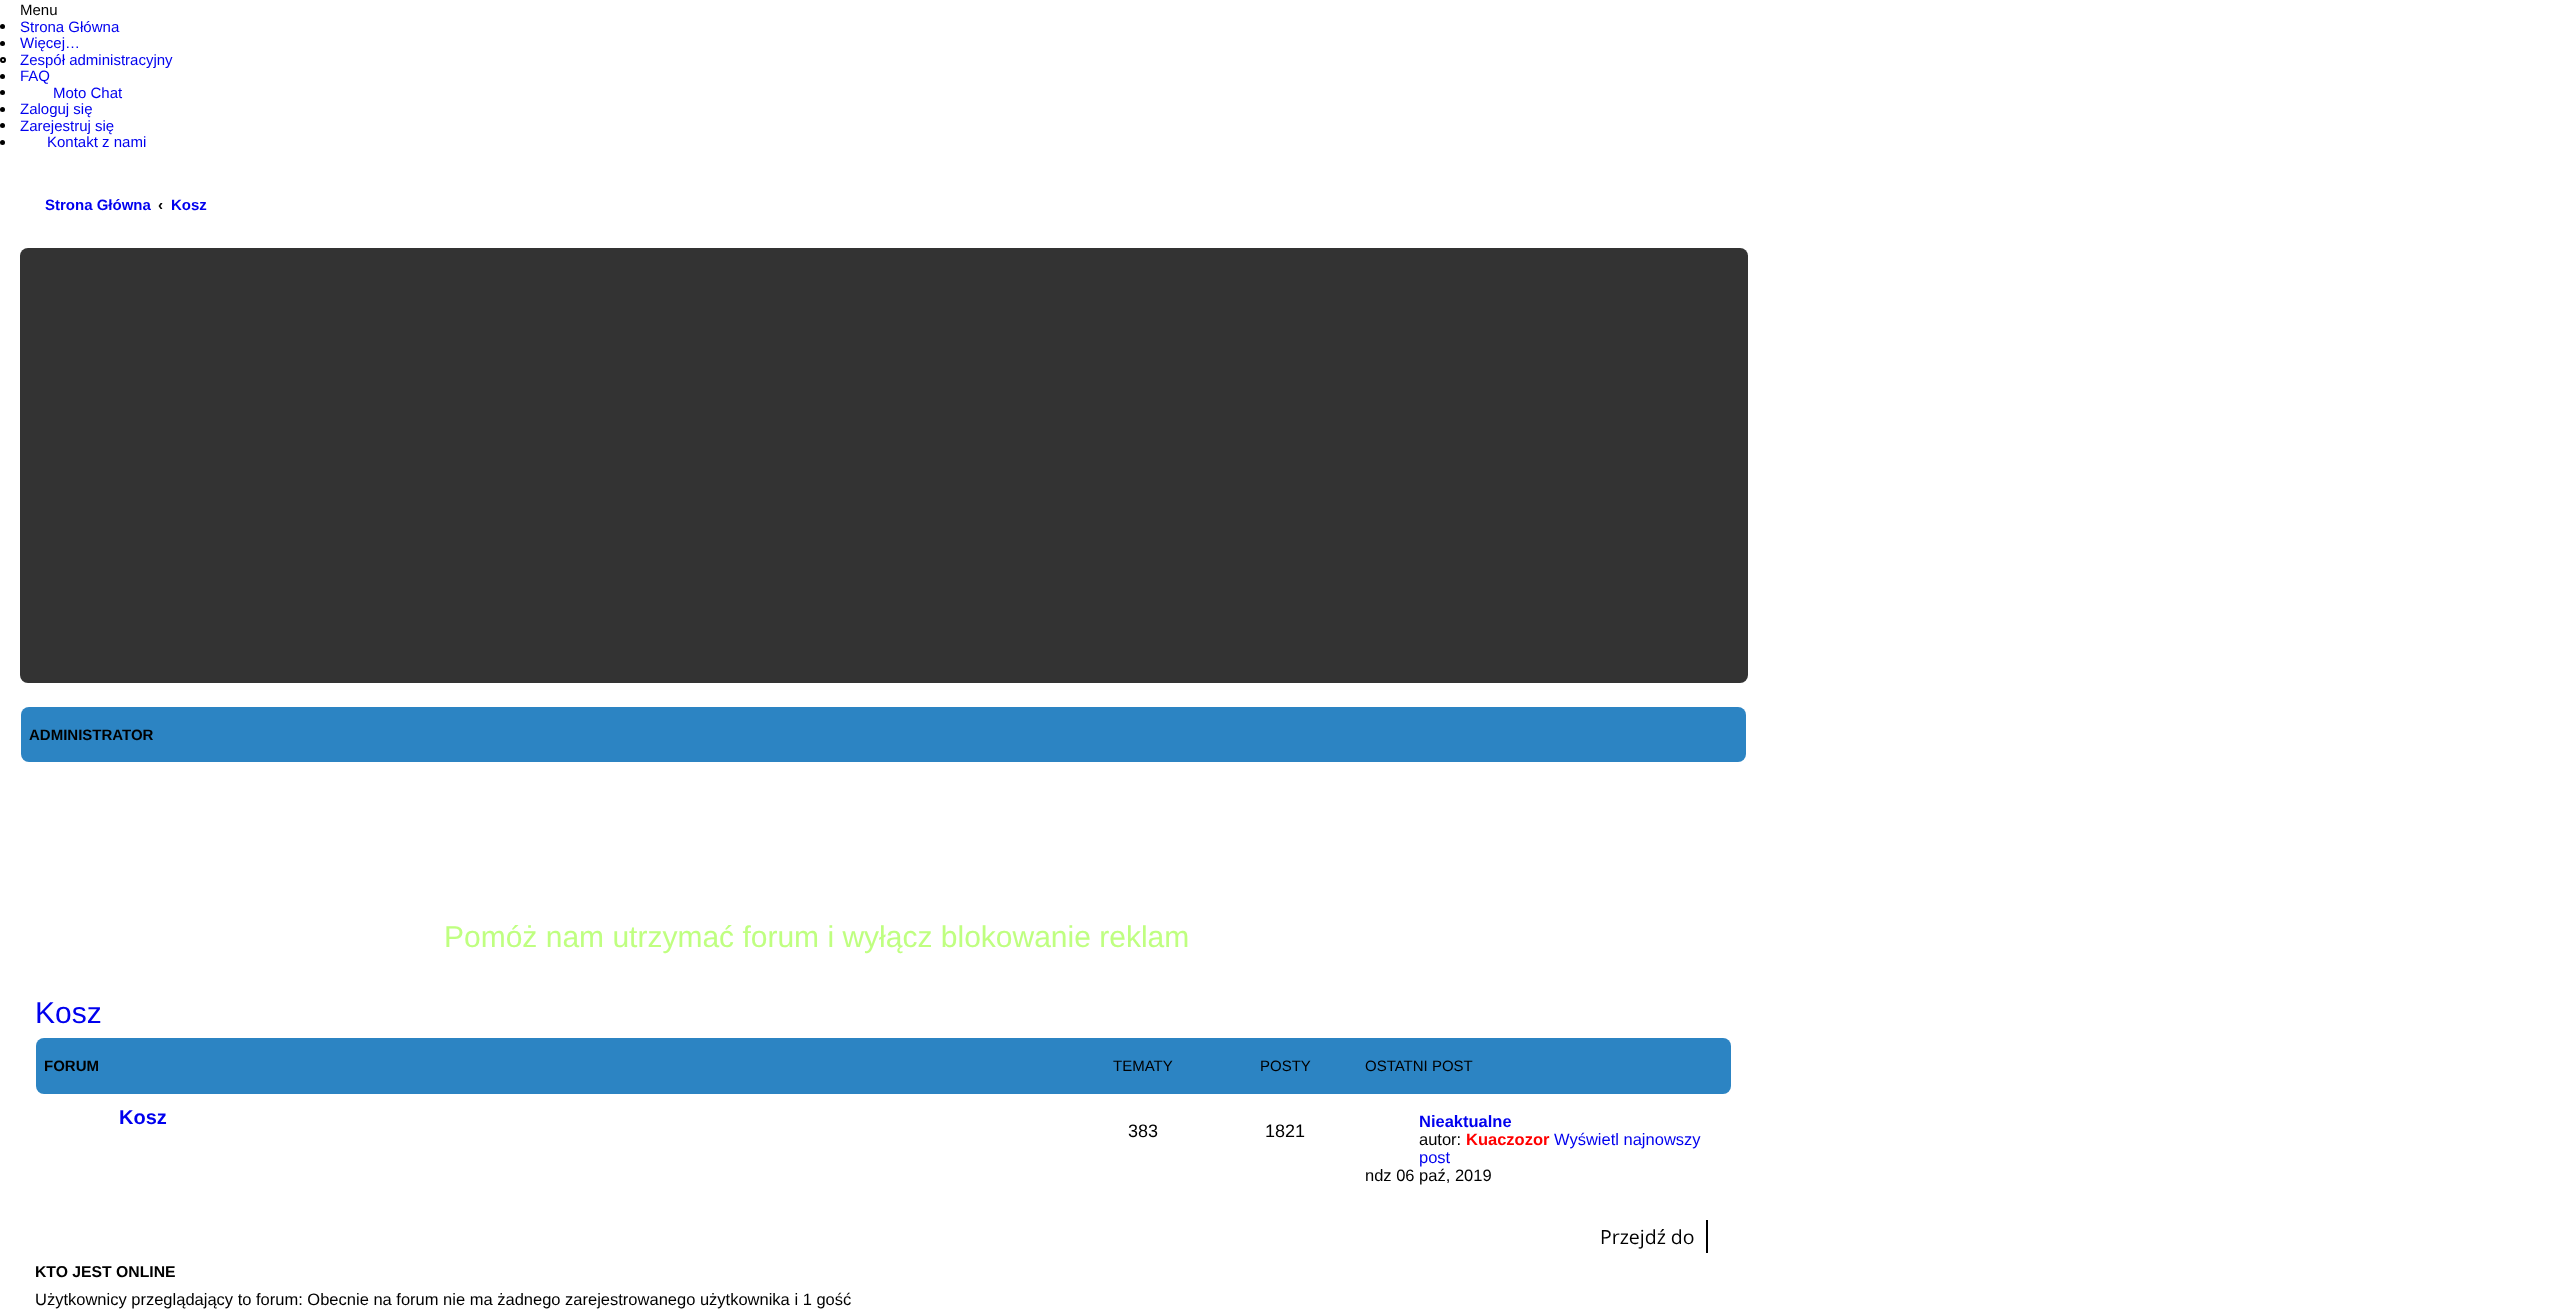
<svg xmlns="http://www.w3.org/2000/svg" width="2553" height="1312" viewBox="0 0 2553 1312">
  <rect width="100%" height="100%" fill="#fff"/>
  <circle cx="2.5" cy="26.5" r="2.5" fill="#000"/>
  <circle cx="2.5" cy="43.5" r="2.5" fill="#000"/>
  <circle cx="3" cy="60" r="2" fill="none" stroke="#000" stroke-width="2"/>
  <circle cx="2.5" cy="76.5" r="2.5" fill="#000"/>
  <circle cx="2.5" cy="92.5" r="2.5" fill="#000"/>
  <circle cx="2.5" cy="109.5" r="2.5" fill="#000"/>
  <circle cx="2.5" cy="125.5" r="2.5" fill="#000"/>
  <circle cx="2.5" cy="142.5" r="2.5" fill="#000"/>
  <rect x="20" y="248" width="1728" height="435" rx="8" fill="#333"/>
  <rect x="21" y="707" width="1725" height="55" rx="8" fill="#2c84c3"/>
  <rect x="36" y="1038" width="1695" height="56" rx="8" fill="#2c84c3"/>
  <path d="M1706 1220h2v33H1706z" fill="#000"/>
  <text x="20" y="15" font-family="Liberation Sans" font-size="15" fill="#000">Menu</text>
  <g font-family="Liberation Sans" font-size="15" fill="#00e">
    <text x="20" y="32">Strona Główna</text>
    <text x="20" y="48">Więcej…</text>
    <text x="20" y="65">Zespół administracyjny</text>
    <text x="20" y="81">FAQ</text>
    <text x="53" y="98">Moto Chat</text>
    <text x="20" y="114">Zaloguj się</text>
    <text x="20" y="131">Zarejestruj się</text>
    <text x="47" y="147">Kontakt z nami</text>
  </g>
  <text x="45" y="210" font-family="Liberation Sans" font-size="15" font-weight="bold" fill="#00e">Strona Główna</text>
  <text x="158" y="210" font-family="Liberation Sans" font-size="15" font-weight="bold" fill="#000">‹</text>
  <text x="171" y="210" font-family="Liberation Sans" font-size="15" font-weight="bold" fill="#00e">Kosz</text>
  <text x="29" y="740" font-family="Liberation Sans" font-size="15" font-weight="bold" fill="#000">ADMINISTRATOR</text>
  <text x="444" y="947" font-family="Liberation Sans" font-size="30" fill="#bfff80">Pomóż nam utrzymać forum i wyłącz blokowanie reklam</text>
  <text x="35" y="1023" font-family="Liberation Sans" font-size="30" fill="#00e">Kosz</text>
  <text x="44" y="1071" font-family="Liberation Sans" font-size="15" font-weight="bold" fill="#000">FORUM</text>
  <g font-family="Liberation Sans" font-size="15" fill="#000">
    <text x="1113" y="1071">TEMATY</text>
    <text x="1260" y="1071">POSTY</text>
    <text x="1365" y="1071">OSTATNI POST</text>
  </g>
  <text x="119" y="1124" font-family="Liberation Sans" font-size="20" font-weight="bold" fill="#00e">Kosz</text>
  <g font-family="Liberation Sans" font-size="18" fill="#000">
    <text x="1128" y="1137">383</text>
    <text x="1265" y="1137">1821</text>
  </g>
  <text x="1419" y="1127" font-family="Liberation Sans" font-size="16.5" font-weight="bold" fill="#00e">Nieaktualne</text>
  <text x="1419" y="1145" font-family="Liberation Sans" font-size="16.5" fill="#000">autor:</text>
  <text x="1466" y="1145" font-family="Liberation Sans" font-size="16.5" font-weight="bold" fill="#f00">Kuaczozor</text>
  <g font-family="Liberation Sans" font-size="16.5" fill="#00e">
    <text x="1554" y="1145">Wyświetl najnowszy</text>
    <text x="1419" y="1163">post</text>
  </g>
  <text x="1365" y="1181" font-family="Liberation Sans" font-size="16.5" fill="#000">ndz 06 paź, 2019</text>
  <text x="1600" y="1244" font-family="Open Sans" font-size="19.5" fill="#000">Przejdź do</text>
  <text x="35" y="1277" font-family="Liberation Sans" font-size="15.75" font-weight="bold" fill="#000">KTO JEST ONLINE</text>
  <text x="35" y="1305" font-family="Liberation Sans" font-size="16.5" fill="#000">Użytkownicy przeglądający to forum: Obecnie na forum nie ma żadnego zarejestrowanego użytkownika i 1 gość</text>
</svg>
